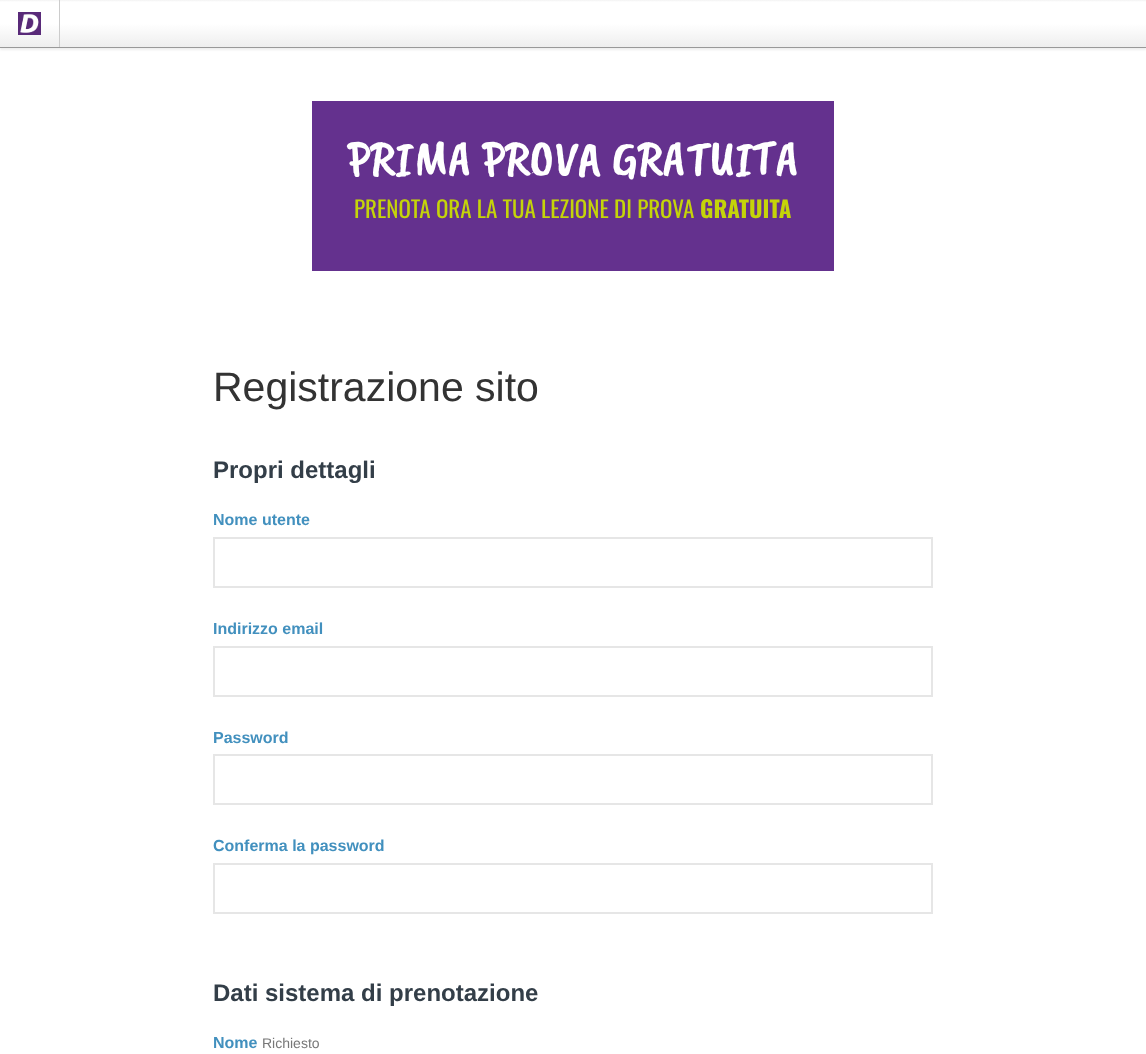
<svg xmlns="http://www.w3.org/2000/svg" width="1146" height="1054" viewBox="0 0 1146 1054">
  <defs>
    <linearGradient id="g1" gradientUnits="userSpaceOnUse" x1="573" y1="0" x2="573" y2="47"><stop offset="0" stop-color="#f2f2f2"/><stop offset="0.04" stop-color="#fff"/><stop offset="0.5" stop-color="#fff"/><stop offset="1" stop-color="#eee"/></linearGradient>
  </defs>
  <rect width="100%" height="100%" fill="#fff"/>
  <path d="M0 2h1146v48H0z" fill="#5a5a5a1a" filter="blur(1px)"/>
  <path d="M0 0h1146v47H0z" fill="url(#g1)"/>
  <path d="M0 47h1146v1H0z" fill="#999"/>
  <path d="M59 0h1v47H59z" fill="#ccc"/>
  <image x="18" y="12" width="23" height="23" href="img/1.png"/>
  <path d="M312 101h522v170H312z" fill="#64318e"/>
  <path d="M214 538h718v49H214z" fill="none" stroke="#e6e6e6" stroke-width="2"/>
  <path d="M214 647h718v49H214z" fill="none" stroke="#e6e6e6" stroke-width="2"/>
  <path d="M214 755h718v49H214z" fill="none" stroke="#e6e6e6" stroke-width="2"/>
  <path d="M214 864h718v49H214z" fill="none" stroke="#e6e6e6" stroke-width="2"/>
  <text x="347" y="175" font-family="Caveat Brush" font-size="50" fill="#fff">PRIMA PROVA GRATUITA</text>
  <text x="354" y="218" font-family="Oswald" font-size="23" fill="#c5d409">PRENOTA ORA LA TUA LEZIONE DI PROVA</text>
  <text x="700" y="218" font-family="Oswald" font-size="23" font-weight="bold" fill="#c5d409">GRATUITA</text>
  <text x="213" y="401" font-family="Liberation Sans" font-size="41" fill="#333">Registrazione sito</text>
  <text x="213" y="478" font-family="Liberation Sans" font-size="24" font-weight="bold" fill="#333e48">Propri dettagli</text>
  <g font-family="Liberation Sans" font-size="16" font-weight="bold" fill="#4290be">
    <text x="213" y="525">Nome utente</text>
    <text x="213" y="634">Indirizzo email</text>
    <text x="213" y="743">Password</text>
    <text x="213" y="851">Conferma la password</text>
  </g>
  <text x="213" y="1001" font-family="Liberation Sans" font-size="24" font-weight="bold" fill="#333e48">Dati sistema di prenotazione</text>
  <text x="213" y="1048" font-family="Liberation Sans" font-size="16" font-weight="bold" fill="#4290be">Nome</text>
  <text x="262" y="1048" font-family="Liberation Sans" font-size="14" fill="#777">Richiesto</text>
</svg>
